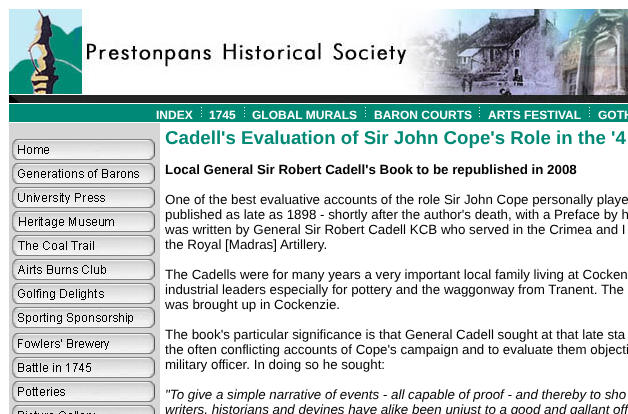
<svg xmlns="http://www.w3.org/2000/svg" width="628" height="414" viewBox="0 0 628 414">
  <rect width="100%" height="100%" fill="#fff"/>
  <image x="9" y="9" width="619" height="94" href="img/1.png"/>
  <path d="M9 104h619v18H9z" fill="#008975"/>
  <image x="201" y="106" width="1" height="11" href="img/2.png"/>
  <image x="244" y="106" width="1" height="11" href="img/2.png"/>
  <image x="365" y="106" width="1" height="11" href="img/2.png"/>
  <image x="479" y="106" width="1" height="11" href="img/2.png"/>
  <image x="589" y="106" width="1" height="11" href="img/2.png"/>
  <path d="M9 123h151v291H9z" fill="#d6d6d6"/>
  <image x="12" y="139" width="143" height="21" href="img/3.png"/>
  <image x="12" y="163" width="143" height="21" href="img/4.png"/>
  <image x="12" y="187" width="143" height="21" href="img/5.png"/>
  <image x="12" y="211" width="143" height="21" href="img/6.png"/>
  <image x="12" y="235" width="143" height="21" href="img/7.png"/>
  <image x="12" y="259" width="143" height="21" href="img/8.png"/>
  <image x="12" y="283" width="143" height="21" href="img/9.png"/>
  <image x="12" y="307" width="143" height="21" href="img/10.png"/>
  <image x="12" y="333" width="143" height="21" href="img/11.png"/>
  <image x="12" y="357" width="143" height="21" href="img/12.png"/>
  <image x="12" y="381" width="143" height="21" href="img/13.png"/>
  <image x="12" y="405" width="143" height="9" href="img/14.png"/>
  <g font-family="Liberation Sans" font-size="12" font-weight="bold" fill="#fff">
    <text x="156" y="119">INDEX</text>
    <text x="209" y="119">1745</text>
    <text x="252" y="119">GLOBAL MURALS</text>
    <text x="374" y="119">BARON COURTS</text>
    <text x="488" y="119">ARTS FESTIVAL</text>
    <text x="598" y="119">GOTH</text>
  </g>
  <text x="165" y="144" font-family="Liberation Sans" font-size="18.7" font-weight="bold" fill="#008975">Cadell's Evaluation of Sir John Cope's Role in the '4</text>
  <text x="165" y="174" font-family="Liberation Sans" font-size="13.35" font-weight="bold" fill="#000">Local General Sir Robert Cadell's Book to be republished in 2008</text>
  <g font-family="Liberation Sans" font-size="13.35" fill="#000">
    <text x="165" y="204">One of the best evaluative accounts of the role Sir John Cope personally playe</text>
    <text x="165" y="219">published as late as 1898 - shortly after the author's death, with a Preface by h</text>
    <text x="165" y="234">was written by General Sir Robert Cadell KCB who served in the Crimea and I</text>
    <text x="165" y="249">the Royal [Madras] Artillery.</text>
    <text x="165" y="279">The Cadells were for many years a very important local family living at Cocken</text>
    <text x="165" y="294">industrial leaders especially for pottery and the waggonway from Tranent. The</text>
    <text x="165" y="309">was brought up in Cockenzie.</text>
    <text x="165" y="339">The book's particular significance is that General Cadell sought at that late sta</text>
    <text x="165" y="354">the often conflicting accounts of Cope's campaign and to evaluate them objecti</text>
    <text x="165" y="369">military officer. In doing so he sought:</text>
  </g>
  <g font-family="Liberation Sans" font-size="13.35" font-style="italic" fill="#000">
    <text x="165" y="399">"To give a simple narrative of events - all capable of proof - and thereby to sho</text>
    <text x="165" y="414">writers, historians and devines have alike been unjust to a good and gallant off</text>
  </g>
</svg>
